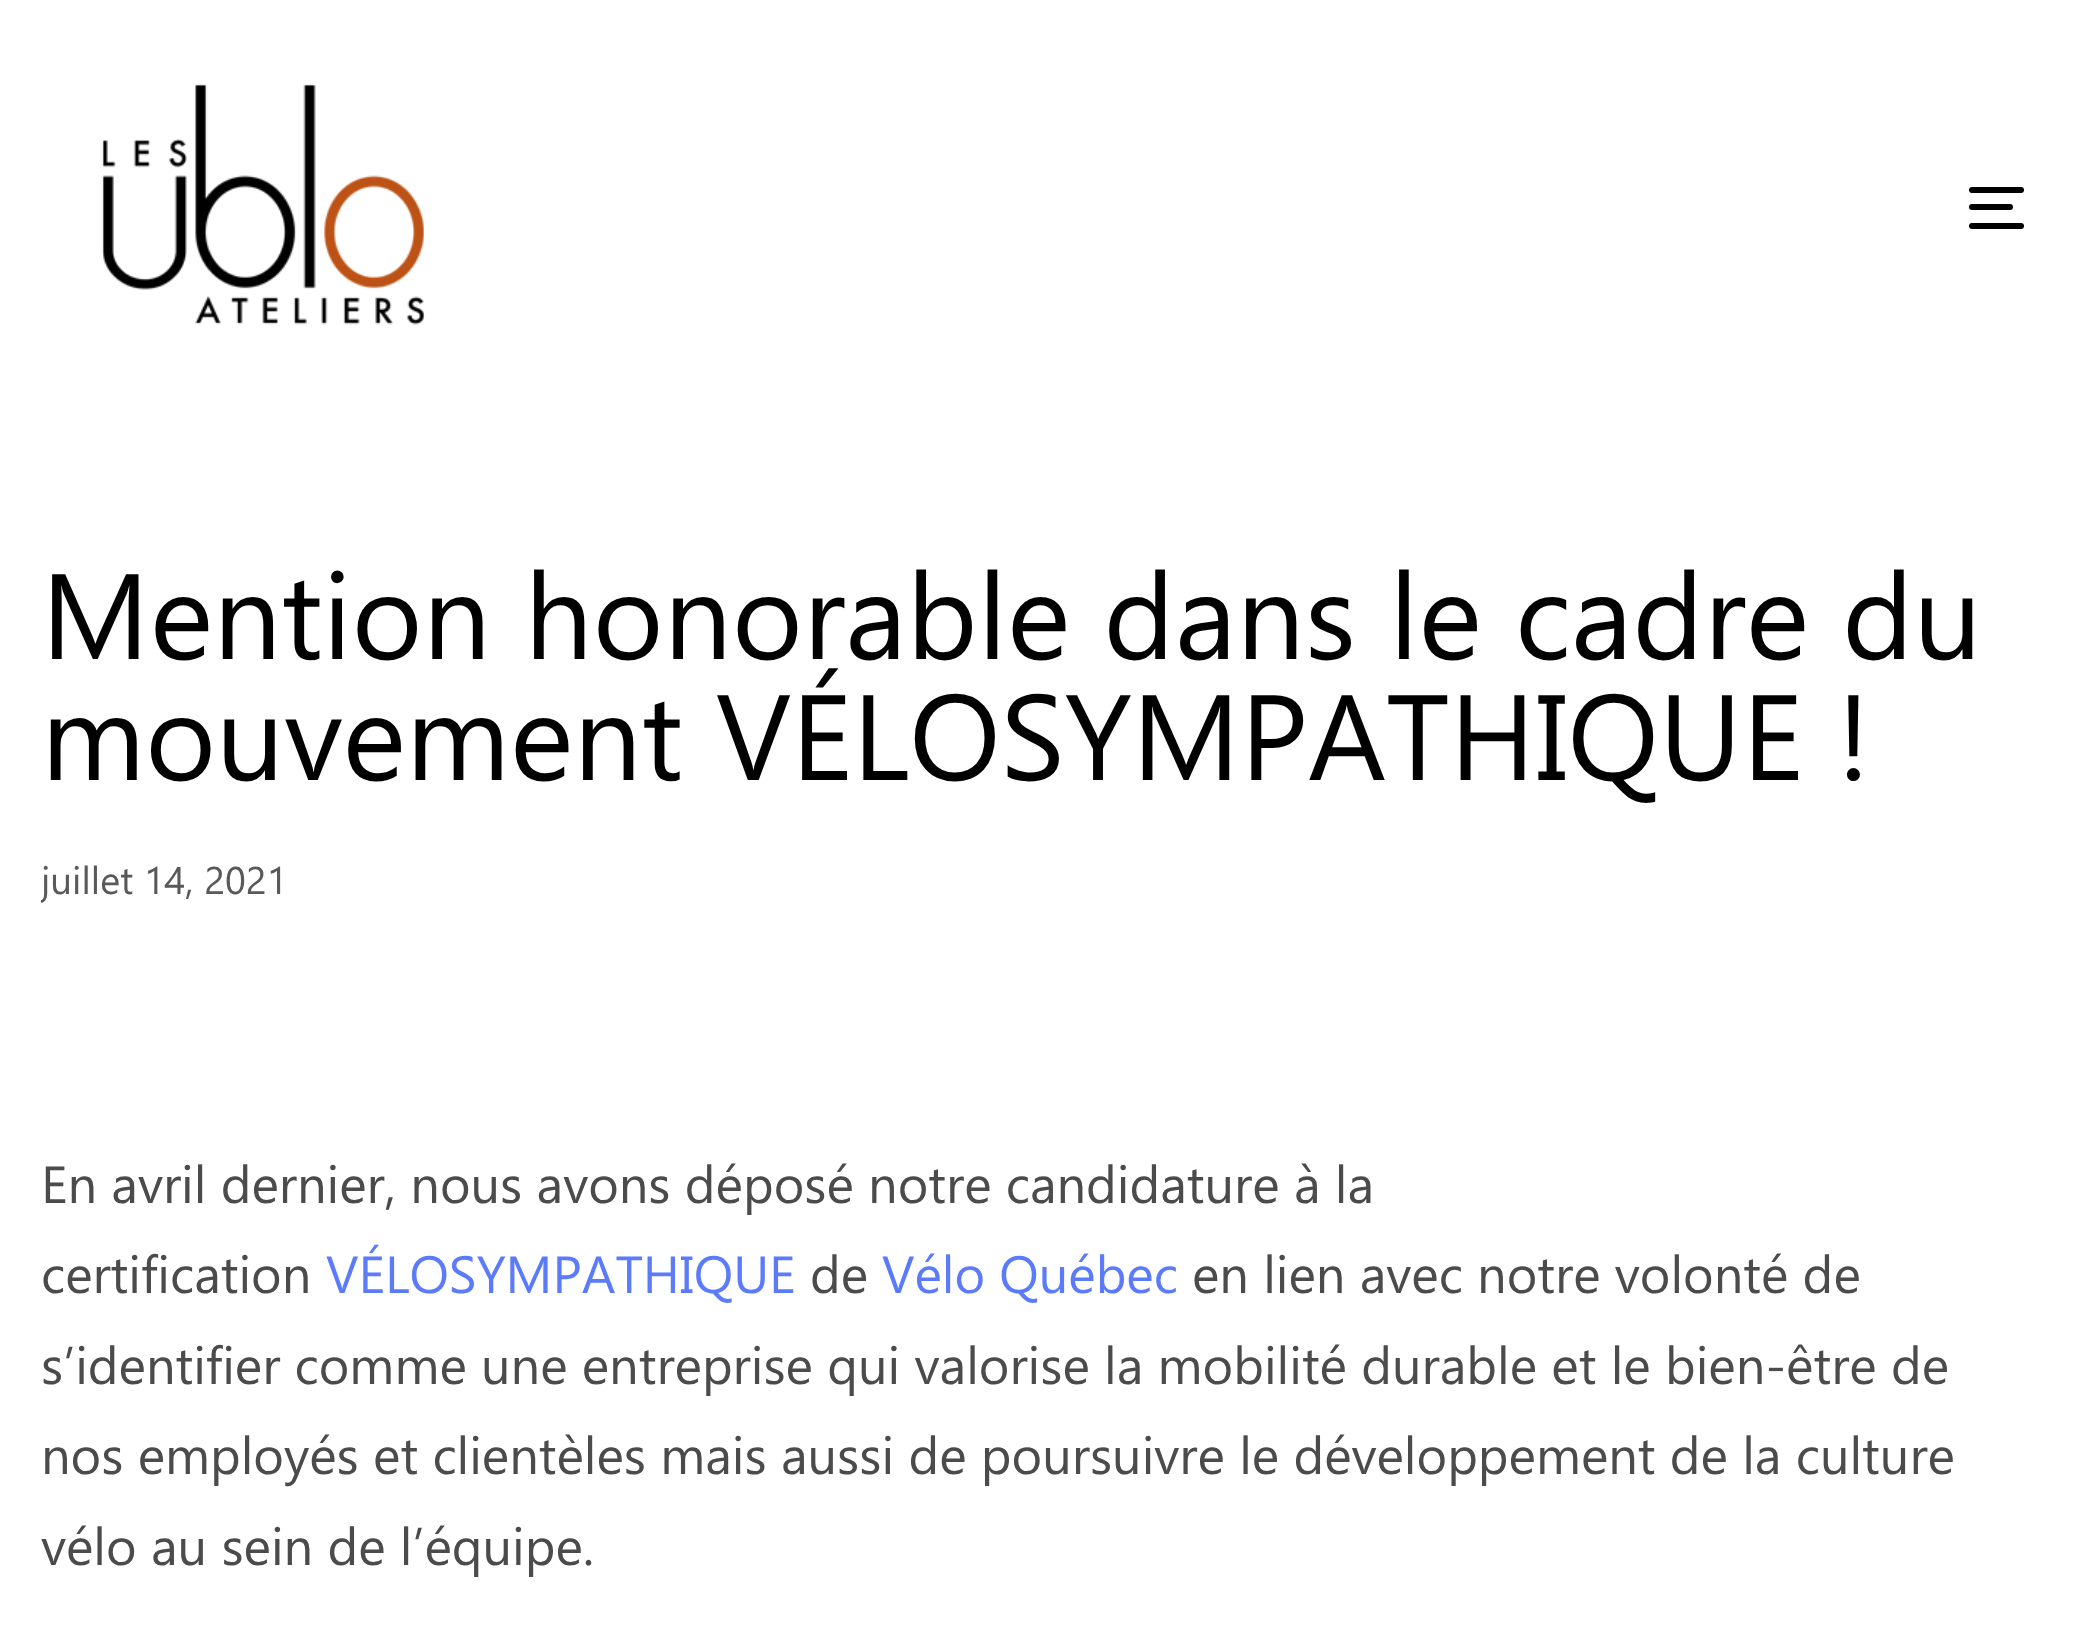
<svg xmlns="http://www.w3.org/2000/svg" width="2079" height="1636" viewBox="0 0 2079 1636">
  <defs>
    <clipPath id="clip1"><path d="M41 413h1997v585H41z"/></clipPath>
  </defs>
  <rect width="100%" height="100%" fill="#fff"/>
  <image x="101" y="83" width="324" height="242" href="img/1.png"/>
  <rect x="1969" y="187" width="55" height="6" rx="3" fill="#000"/>
  <rect x="1969" y="204" width="44" height="6" rx="3" fill="#000"/>
  <rect x="1969" y="223" width="55" height="6" rx="3" fill="#000"/>
  <g font-family="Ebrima" font-size="121" fill="#000">
    <text x="41" y="659">Mention honorable dans le cadre du</text>
    <text x="41" y="780">mouvement VÉLOSYMPATHIQUE !</text>
  </g>
  <g clip-path="url(#clip1)">
    <text x="41" y="894" font-family="Ebrima" font-size="38.5" fill="#595959">juillet 14, 2021</text>
  </g>
  <g font-family="Ebrima" font-size="52.25" fill="#4b4b4b">
    <text x="41" y="1203">En avril dernier, nous avons déposé notre candidature à la</text>
    <text x="41" y="1293">certification</text>
  </g>
  <text x="326" y="1293" font-family="Ebrima" font-size="52.25" fill="#5b7bfb">VÉLOSYMPATHIQUE</text>
  <text x="810" y="1293" font-family="Ebrima" font-size="52.25" fill="#4b4b4b">de</text>
  <text x="882" y="1293" font-family="Ebrima" font-size="52.25" fill="#5b7bfb">Vélo Québec</text>
  <g font-family="Ebrima" font-size="52.25" fill="#4b4b4b">
    <text x="1192" y="1293">en lien avec notre volonté de</text>
    <text x="41" y="1384">s’identifier comme une entreprise qui valorise la mobilité durable et le bien-être de</text>
    <text x="41" y="1474">nos employés et clientèles mais aussi de poursuivre le développement de la culture</text>
    <text x="41" y="1565">vélo au sein de l’équipe.</text>
  </g>
</svg>
